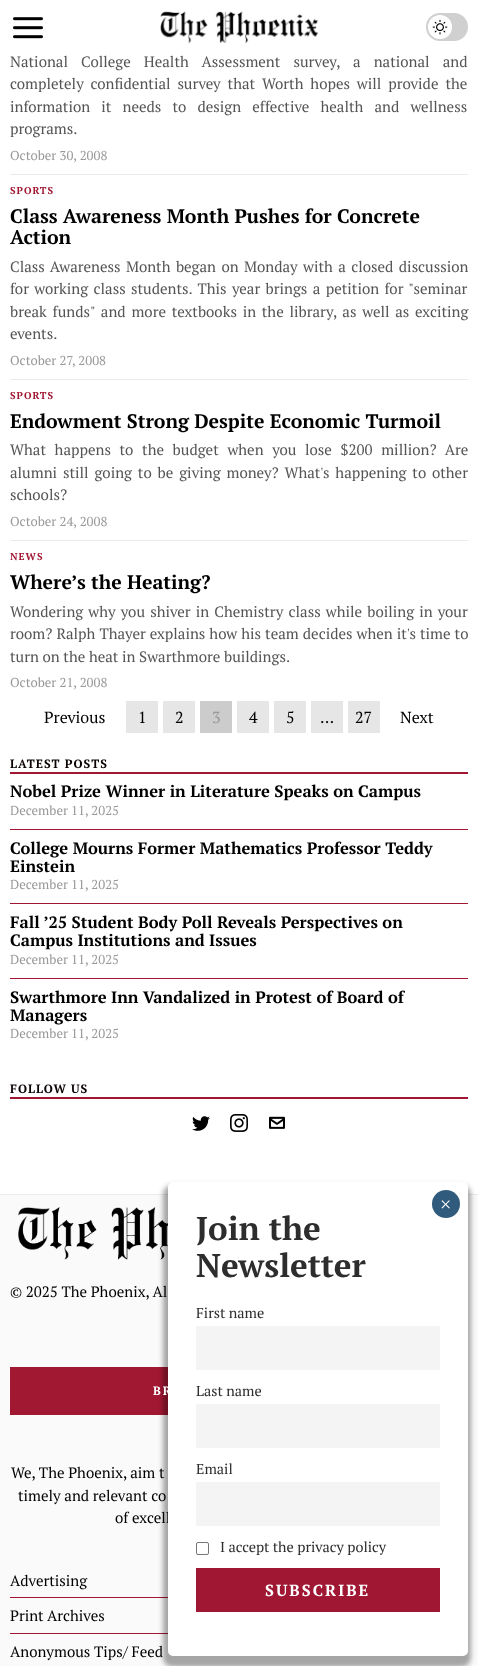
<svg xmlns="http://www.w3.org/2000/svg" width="478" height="1666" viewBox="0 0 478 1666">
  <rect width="100%" height="100%" fill="#fff"/>
  <image x="13" y="17" width="30" height="22" href="img/1.png"/>
  <image x="160" y="11" width="159" height="33" href="img/2.png"/>
  <rect x="427" y="14" width="40" height="26" rx="13" fill="#d0d0d0" stroke="#d0d0d0" stroke-width="2"/>
  <circle cx="440" cy="27" r="12" fill="#fff"/>
  <image x="432" y="19" width="16" height="16" href="img/3.png"/>
  <path d="M10 174h458v1H10z" fill="#eaeaea"/>
  <path d="M10 379h458v1H10z" fill="#eaeaea"/>
  <path d="M10 540h458v1H10z" fill="#eaeaea"/>
  <path d="M126 701h32v32H126z" fill="#e6e6e6"/>
  <path d="M163 701h32v32H163z" fill="#e6e6e6"/>
  <path d="M200 701h32v32H200z" fill="#ccc"/>
  <path d="M237 701h32v32H237z" fill="#e6e6e6"/>
  <path d="M274 701h32v32H274z" fill="#e6e6e6"/>
  <path d="M311 701h32v32H311z" fill="#e6e6e6"/>
  <path d="M348 701h32v32H348z" fill="#e6e6e6"/>
  <path d="M10 772h458v2H10z" fill="#a11733"/>
  <path d="M10 829h458v1H10z" fill="#a11733"/>
  <path d="M10 903h458v1H10z" fill="#a11733"/>
  <path d="M10 978h458v1H10z" fill="#a11733"/>
  <path d="M10 1097h458v2H10z" fill="#a11733"/>
  <image x="192" y="1116" width="18" height="15" href="img/4.png"/>
  <image x="230" y="1114" width="18" height="18" href="img/5.png"/>
  <image x="269" y="1116" width="16" height="13" href="img/6.png"/>
  <path d="M0 1195h478v471H0z" fill="#fafafa"/>
  <path d="M0 1194h478v1H0z" fill="#eaeaea"/>
  <image x="18" y="1206" width="150" height="54" href="img/7.png"/>
  <path d="M10 1367h158v48H10z" fill="#a11833"/>
  <path d="M10 1597h158v1H10z" fill="#a11733"/>
  <path d="M10 1633h158v1H10z" fill="#a11733"/>
  <rect x="163" y="1185" width="308" height="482" rx="9" fill="#00000057" filter="blur(2.5px)"/>
  <g font-family="PT Serif" font-size="15" fill="#555">
    <text x="10" y="67" word-spacing="9.5">National College Health Assessment survey, a national and</text>
    <text x="10" y="89" word-spacing="3.25">completely confidential survey that Worth hopes will provide the</text>
    <text x="10" y="112" word-spacing="7.5">information it needs to design effective health and wellness</text>
    <text x="10" y="134">programs.</text>
  </g>
  <text x="10" y="160" font-family="PT Serif" font-size="13" fill="#999">October 30, 2008</text>
  <text x="10" y="194" font-family="PT Serif" font-size="10" font-weight="bold" letter-spacing="1" fill="#a11833">SPORTS</text>
  <g font-family="PT Serif" font-size="19.5" font-weight="bold" fill="#000">
    <text x="10" y="223">Class Awareness Month Pushes for Concrete</text>
    <text x="10" y="244">Action</text>
  </g>
  <g font-family="PT Serif" font-size="15" fill="#555">
    <text x="10" y="272" word-spacing="1.75">Class Awareness Month began on Monday with a closed discussion</text>
    <text x="10" y="294" word-spacing="1.75">for working class students. This year brings a petition for "seminar</text>
    <text x="10" y="317" word-spacing="2.1">break funds" and more textbooks in the library, as well as exciting</text>
    <text x="10" y="339">events.</text>
  </g>
  <text x="10" y="365" font-family="PT Serif" font-size="13" fill="#999">October 27, 2008</text>
  <text x="10" y="399" font-family="PT Serif" font-size="10" font-weight="bold" letter-spacing="1" fill="#a11833">SPORTS</text>
  <text x="10" y="428" font-family="PT Serif" font-size="19.5" font-weight="bold" fill="#000">Endowment Strong Despite Economic Turmoil</text>
  <g font-family="PT Serif" font-size="15" fill="#555">
    <text x="10" y="455" word-spacing="5">What happens to the budget when you lose $200 million? Are</text>
    <text x="10" y="478" word-spacing="2.25">alumni still going to be giving money? What's happening to other</text>
    <text x="10" y="500">schools?</text>
  </g>
  <text x="10" y="526" font-family="PT Serif" font-size="13" fill="#999">October 24, 2008</text>
  <text x="10" y="560" font-family="PT Serif" font-size="10" font-weight="bold" letter-spacing="1" fill="#a11833">NEWS</text>
  <text x="10" y="589" font-family="PT Serif" font-size="19.5" font-weight="bold" fill="#000">Where’s the Heating?</text>
  <g font-family="PT Serif" font-size="15" fill="#555">
    <text x="10" y="617" word-spacing="1.5">Wondering why you shiver in Chemistry class while boiling in your</text>
    <text x="10" y="639" word-spacing="0.4">room? Ralph Thayer explains how his team decides when it's time to</text>
    <text x="10" y="662">turn on the heat in Swarthmore buildings.</text>
  </g>
  <text x="10" y="687" font-family="PT Serif" font-size="13" fill="#999">October 21, 2008</text>
  <g font-family="PT Serif" font-size="16" fill="#000">
    <text x="44" y="723">Previous</text>
    <text x="138" y="723">1</text>
    <text x="175" y="723">2</text>
  </g>
  <text x="212" y="723" font-family="PT Serif" font-size="16" fill="#999">3</text>
  <g font-family="PT Serif" font-size="16" fill="#000">
    <text x="249" y="723">4</text>
    <text x="286" y="723">5</text>
    <text x="320" y="723">…</text>
    <text x="355" y="723">27</text>
    <text x="400" y="723">Next</text>
  </g>
  <text x="10" y="768" font-family="PT Serif" font-size="12" font-weight="bold" letter-spacing="1" fill="#0a0101">LATEST POSTS</text>
  <text x="10" y="797" font-family="PT Serif" font-size="16.5" font-weight="bold" fill="#000">Nobel Prize Winner in Literature Speaks on Campus</text>
  <text x="10" y="815" font-family="PT Serif" font-size="13" fill="#999">December 11, 2025</text>
  <g font-family="PT Serif" font-size="16.5" font-weight="bold" fill="#000">
    <text x="10" y="854">College Mourns Former Mathematics Professor Teddy</text>
    <text x="10" y="872">Einstein</text>
  </g>
  <text x="10" y="889" font-family="PT Serif" font-size="13" fill="#999">December 11, 2025</text>
  <g font-family="PT Serif" font-size="16.5" font-weight="bold" fill="#000">
    <text x="10" y="928">Fall ’25 Student Body Poll Reveals Perspectives on</text>
    <text x="10" y="946">Campus Institutions and Issues</text>
  </g>
  <text x="10" y="964" font-family="PT Serif" font-size="13" fill="#999">December 11, 2025</text>
  <g font-family="PT Serif" font-size="16.5" font-weight="bold" fill="#000">
    <text x="10" y="1003">Swarthmore Inn Vandalized in Protest of Board of</text>
    <text x="10" y="1021">Managers</text>
  </g>
  <text x="10" y="1038" font-family="PT Serif" font-size="13" fill="#999">December 11, 2025</text>
  <text x="10" y="1093" font-family="PT Serif" font-size="12" font-weight="bold" letter-spacing="1" fill="#0a0101">FOLLOW US</text>
  <text x="10" y="1297" font-family="PT Serif" font-size="15" fill="#000">© 2025 The Phoenix, Al</text>
  <text x="153" y="1395" font-family="PT Serif" font-size="12" font-weight="bold" letter-spacing="2" fill="#fff">BR</text>
  <g font-family="PT Serif" font-size="15" fill="#000">
    <text x="11" y="1478">We, The Phoenix, aim t</text>
    <text x="18" y="1501">timely and relevant co</text>
    <text x="115" y="1523">of excell</text>
    <text x="10" y="1586">Advertising</text>
    <text x="10" y="1621">Print Archives</text>
    <text x="10" y="1657">Anonymous Tips/ Feed</text>
  </g>
  <rect x="168" y="1182" width="300" height="474" rx="5" fill="#fff"/>
  <circle cx="446" cy="1204" r="14" fill="#315b7c"/>
  <text x="440" y="1211" font-family="Liberation Serif" font-size="20" fill="#fff">×</text>
  <g font-family="PT Serif" font-size="33" font-weight="bold" fill="#2d2d2d">
    <text x="196" y="1240">Join the</text>
    <text x="196" y="1277">Newsletter</text>
  </g>
  <text x="196" y="1318" font-family="PT Serif" font-size="14.4" fill="#2d2d2d">First name</text>
  <rect x="196" y="1326" width="244" height="44" rx="1" fill="#f4f4f4"/>
  <text x="196" y="1396" font-family="PT Serif" font-size="14.4" fill="#2d2d2d">Last name</text>
  <rect x="196" y="1404" width="244" height="44" rx="1" fill="#f4f4f4"/>
  <text x="196" y="1474" font-family="PT Serif" font-size="14.4" fill="#2d2d2d">Email</text>
  <rect x="196" y="1482" width="244" height="44" rx="1" fill="#f4f4f4"/>
  <rect x="196.5" y="1542.5" width="12" height="12" rx="1.5" fill="none" stroke="#767676"/>
  <text x="220" y="1552" font-family="PT Serif" font-size="14.4" fill="#2d2d2d">I accept the privacy policy</text>
  <path d="M196 1568h244v44H196z" fill="#a01733"/>
  <text x="265" y="1596" font-family="PT Serif" font-size="16" font-weight="bold" letter-spacing="2" fill="#fff">SUBSCRIBE</text>
</svg>
